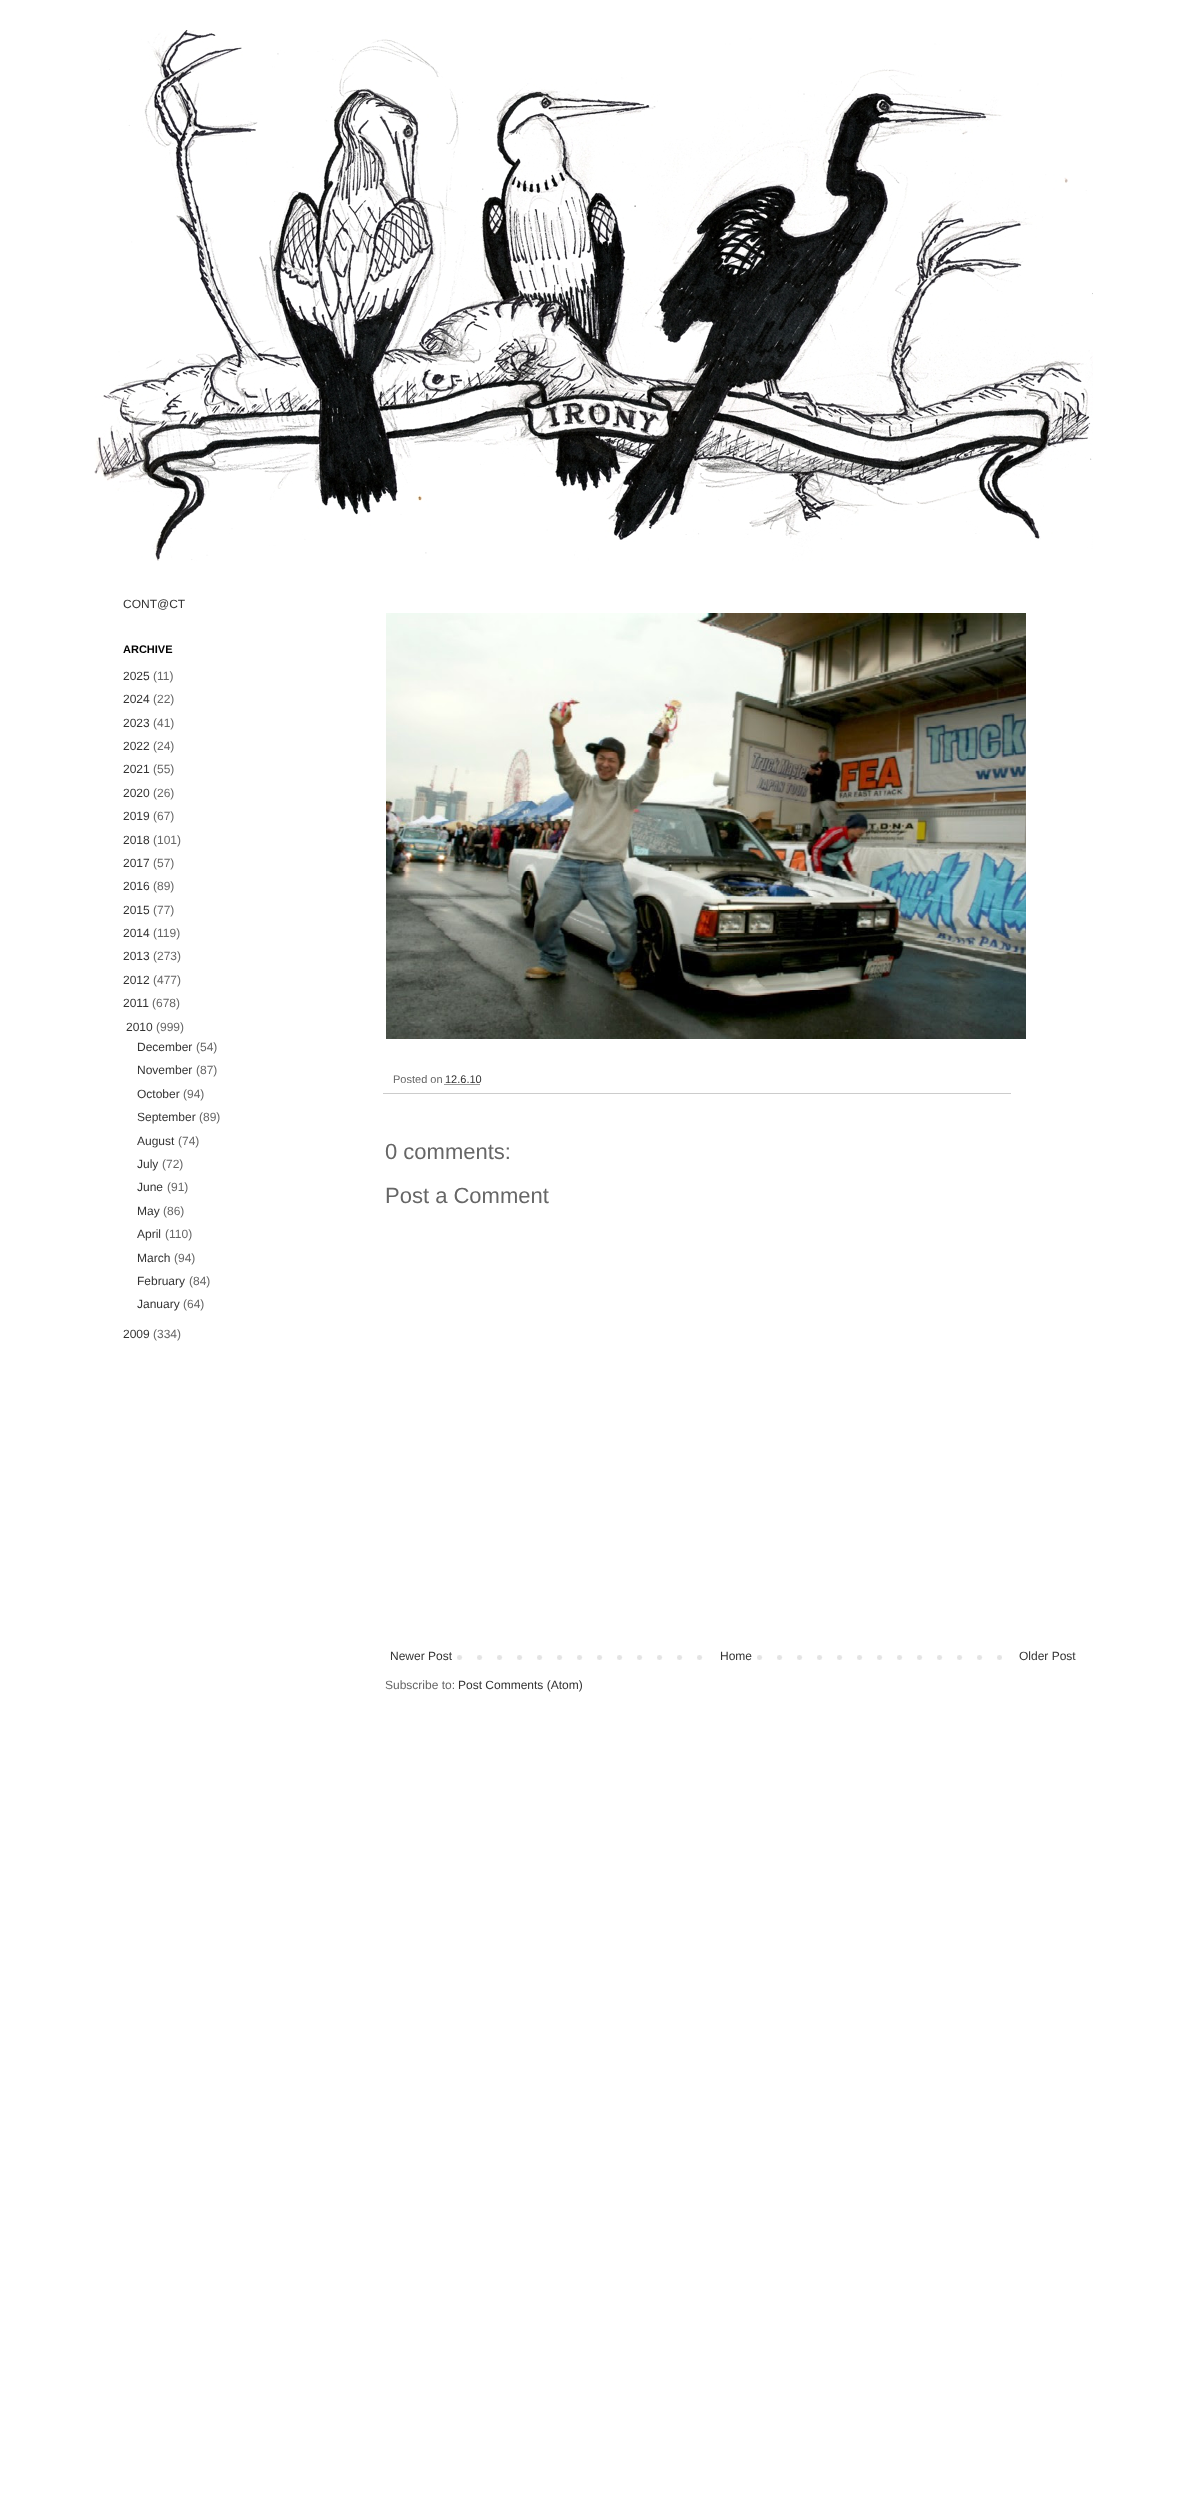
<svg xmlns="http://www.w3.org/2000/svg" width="1186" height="2509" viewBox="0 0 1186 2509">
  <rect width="100%" height="100%" fill="#fff"/>
  <image x="94" y="30" width="999" height="531" href="img/1.png"/>
  <image x="386" y="613" width="640" height="426" href="img/2.png"/>
  <path d="M383 1093h628v1H383z" fill="#ccc"/>
  <path d="M444.5 1084.5H480.5" fill="none" stroke="#333" stroke-dasharray="1 1"/>
  <image x="457" y="1655" width="545" height="5" href="img/3.png"/>
  <path d="M717 1655h26v5H717z" fill="#fff"/>
  <text x="123" y="608" font-family="Liberation Sans" font-size="12" fill="#333">CONT@CT</text>
  <text x="123" y="653" font-family="Liberation Sans" font-size="11" font-weight="bold" fill="#000">ARCHIVE</text>
  <text x="123" y="680" font-family="Liberation Sans" font-size="12" fill="#333">2025</text>
  <text x="153" y="680" font-family="Liberation Sans" font-size="12" fill="#666">(11)</text>
  <text x="123" y="703" font-family="Liberation Sans" font-size="12" fill="#333">2024</text>
  <text x="153" y="703" font-family="Liberation Sans" font-size="12" fill="#666">(22)</text>
  <text x="123" y="727" font-family="Liberation Sans" font-size="12" fill="#333">2023</text>
  <text x="153" y="727" font-family="Liberation Sans" font-size="12" fill="#666">(41)</text>
  <text x="123" y="750" font-family="Liberation Sans" font-size="12" fill="#333">2022</text>
  <text x="153" y="750" font-family="Liberation Sans" font-size="12" fill="#666">(24)</text>
  <text x="123" y="773" font-family="Liberation Sans" font-size="12" fill="#333">2021</text>
  <text x="153" y="773" font-family="Liberation Sans" font-size="12" fill="#666">(55)</text>
  <text x="123" y="797" font-family="Liberation Sans" font-size="12" fill="#333">2020</text>
  <text x="153" y="797" font-family="Liberation Sans" font-size="12" fill="#666">(26)</text>
  <text x="123" y="820" font-family="Liberation Sans" font-size="12" fill="#333">2019</text>
  <text x="153" y="820" font-family="Liberation Sans" font-size="12" fill="#666">(67)</text>
  <text x="123" y="844" font-family="Liberation Sans" font-size="12" fill="#333">2018</text>
  <text x="153" y="844" font-family="Liberation Sans" font-size="12" fill="#666">(101)</text>
  <text x="123" y="867" font-family="Liberation Sans" font-size="12" fill="#333">2017</text>
  <text x="153" y="867" font-family="Liberation Sans" font-size="12" fill="#666">(57)</text>
  <text x="123" y="890" font-family="Liberation Sans" font-size="12" fill="#333">2016</text>
  <text x="153" y="890" font-family="Liberation Sans" font-size="12" fill="#666">(89)</text>
  <text x="123" y="914" font-family="Liberation Sans" font-size="12" fill="#333">2015</text>
  <text x="153" y="914" font-family="Liberation Sans" font-size="12" fill="#666">(77)</text>
  <text x="123" y="937" font-family="Liberation Sans" font-size="12" fill="#333">2014</text>
  <text x="153" y="937" font-family="Liberation Sans" font-size="12" fill="#666">(119)</text>
  <text x="123" y="960" font-family="Liberation Sans" font-size="12" fill="#333">2013</text>
  <text x="153" y="960" font-family="Liberation Sans" font-size="12" fill="#666">(273)</text>
  <text x="123" y="984" font-family="Liberation Sans" font-size="12" fill="#333">2012</text>
  <text x="153" y="984" font-family="Liberation Sans" font-size="12" fill="#666">(477)</text>
  <text x="123" y="1007" font-family="Liberation Sans" font-size="12" fill="#333">2011</text>
  <text x="152" y="1007" font-family="Liberation Sans" font-size="12" fill="#666">(678)</text>
  <text x="126" y="1031" font-family="Liberation Sans" font-size="12" fill="#333">2010</text>
  <text x="156" y="1031" font-family="Liberation Sans" font-size="12" fill="#666">(999)</text>
  <text x="137" y="1051" font-family="Liberation Sans" font-size="12" fill="#333">December</text>
  <text x="196" y="1051" font-family="Liberation Sans" font-size="12" fill="#666">(54)</text>
  <text x="137" y="1074" font-family="Liberation Sans" font-size="12" fill="#333">November</text>
  <text x="196" y="1074" font-family="Liberation Sans" font-size="12" fill="#666">(87)</text>
  <text x="137" y="1098" font-family="Liberation Sans" font-size="12" fill="#333">October</text>
  <text x="183" y="1098" font-family="Liberation Sans" font-size="12" fill="#666">(94)</text>
  <text x="137" y="1121" font-family="Liberation Sans" font-size="12" fill="#333">September</text>
  <text x="199" y="1121" font-family="Liberation Sans" font-size="12" fill="#666">(89)</text>
  <text x="137" y="1145" font-family="Liberation Sans" font-size="12" fill="#333">August</text>
  <text x="178" y="1145" font-family="Liberation Sans" font-size="12" fill="#666">(74)</text>
  <text x="137" y="1168" font-family="Liberation Sans" font-size="12" fill="#333">July</text>
  <text x="162" y="1168" font-family="Liberation Sans" font-size="12" fill="#666">(72)</text>
  <text x="137" y="1191" font-family="Liberation Sans" font-size="12" fill="#333">June</text>
  <text x="167" y="1191" font-family="Liberation Sans" font-size="12" fill="#666">(91)</text>
  <text x="137" y="1215" font-family="Liberation Sans" font-size="12" fill="#333">May</text>
  <text x="163" y="1215" font-family="Liberation Sans" font-size="12" fill="#666">(86)</text>
  <text x="137" y="1238" font-family="Liberation Sans" font-size="12" fill="#333">April</text>
  <text x="165" y="1238" font-family="Liberation Sans" font-size="12" fill="#666">(110)</text>
  <text x="137" y="1262" font-family="Liberation Sans" font-size="12" fill="#333">March</text>
  <text x="174" y="1262" font-family="Liberation Sans" font-size="12" fill="#666">(94)</text>
  <text x="137" y="1285" font-family="Liberation Sans" font-size="12" fill="#333">February</text>
  <text x="189" y="1285" font-family="Liberation Sans" font-size="12" fill="#666">(84)</text>
  <text x="137" y="1308" font-family="Liberation Sans" font-size="12" fill="#333">January</text>
  <text x="183" y="1308" font-family="Liberation Sans" font-size="12" fill="#666">(64)</text>
  <text x="123" y="1338" font-family="Liberation Sans" font-size="12" fill="#333">2009</text>
  <text x="153" y="1338" font-family="Liberation Sans" font-size="12" fill="#666">(334)</text>
  <text x="393" y="1083" font-family="Liberation Sans" font-size="11" fill="#666">Posted on</text>
  <text x="445" y="1083" font-family="Liberation Sans" font-size="11" fill="#333">12.6.10</text>
  <g font-family="Liberation Sans" font-size="22" fill="#666">
    <text x="385" y="1159">0 comments:</text>
    <text x="385" y="1203">Post a Comment</text>
  </g>
  <g font-family="Liberation Sans" font-size="12" fill="#333">
    <text x="390" y="1660">Newer Post</text>
    <text x="720" y="1660">Home</text>
    <text x="1019" y="1660">Older Post</text>
  </g>
  <text x="385" y="1689" font-family="Liberation Sans" font-size="12" fill="#666">Subscribe to:</text>
  <text x="458" y="1689" font-family="Liberation Sans" font-size="12" fill="#333">Post Comments (Atom)</text>
</svg>
